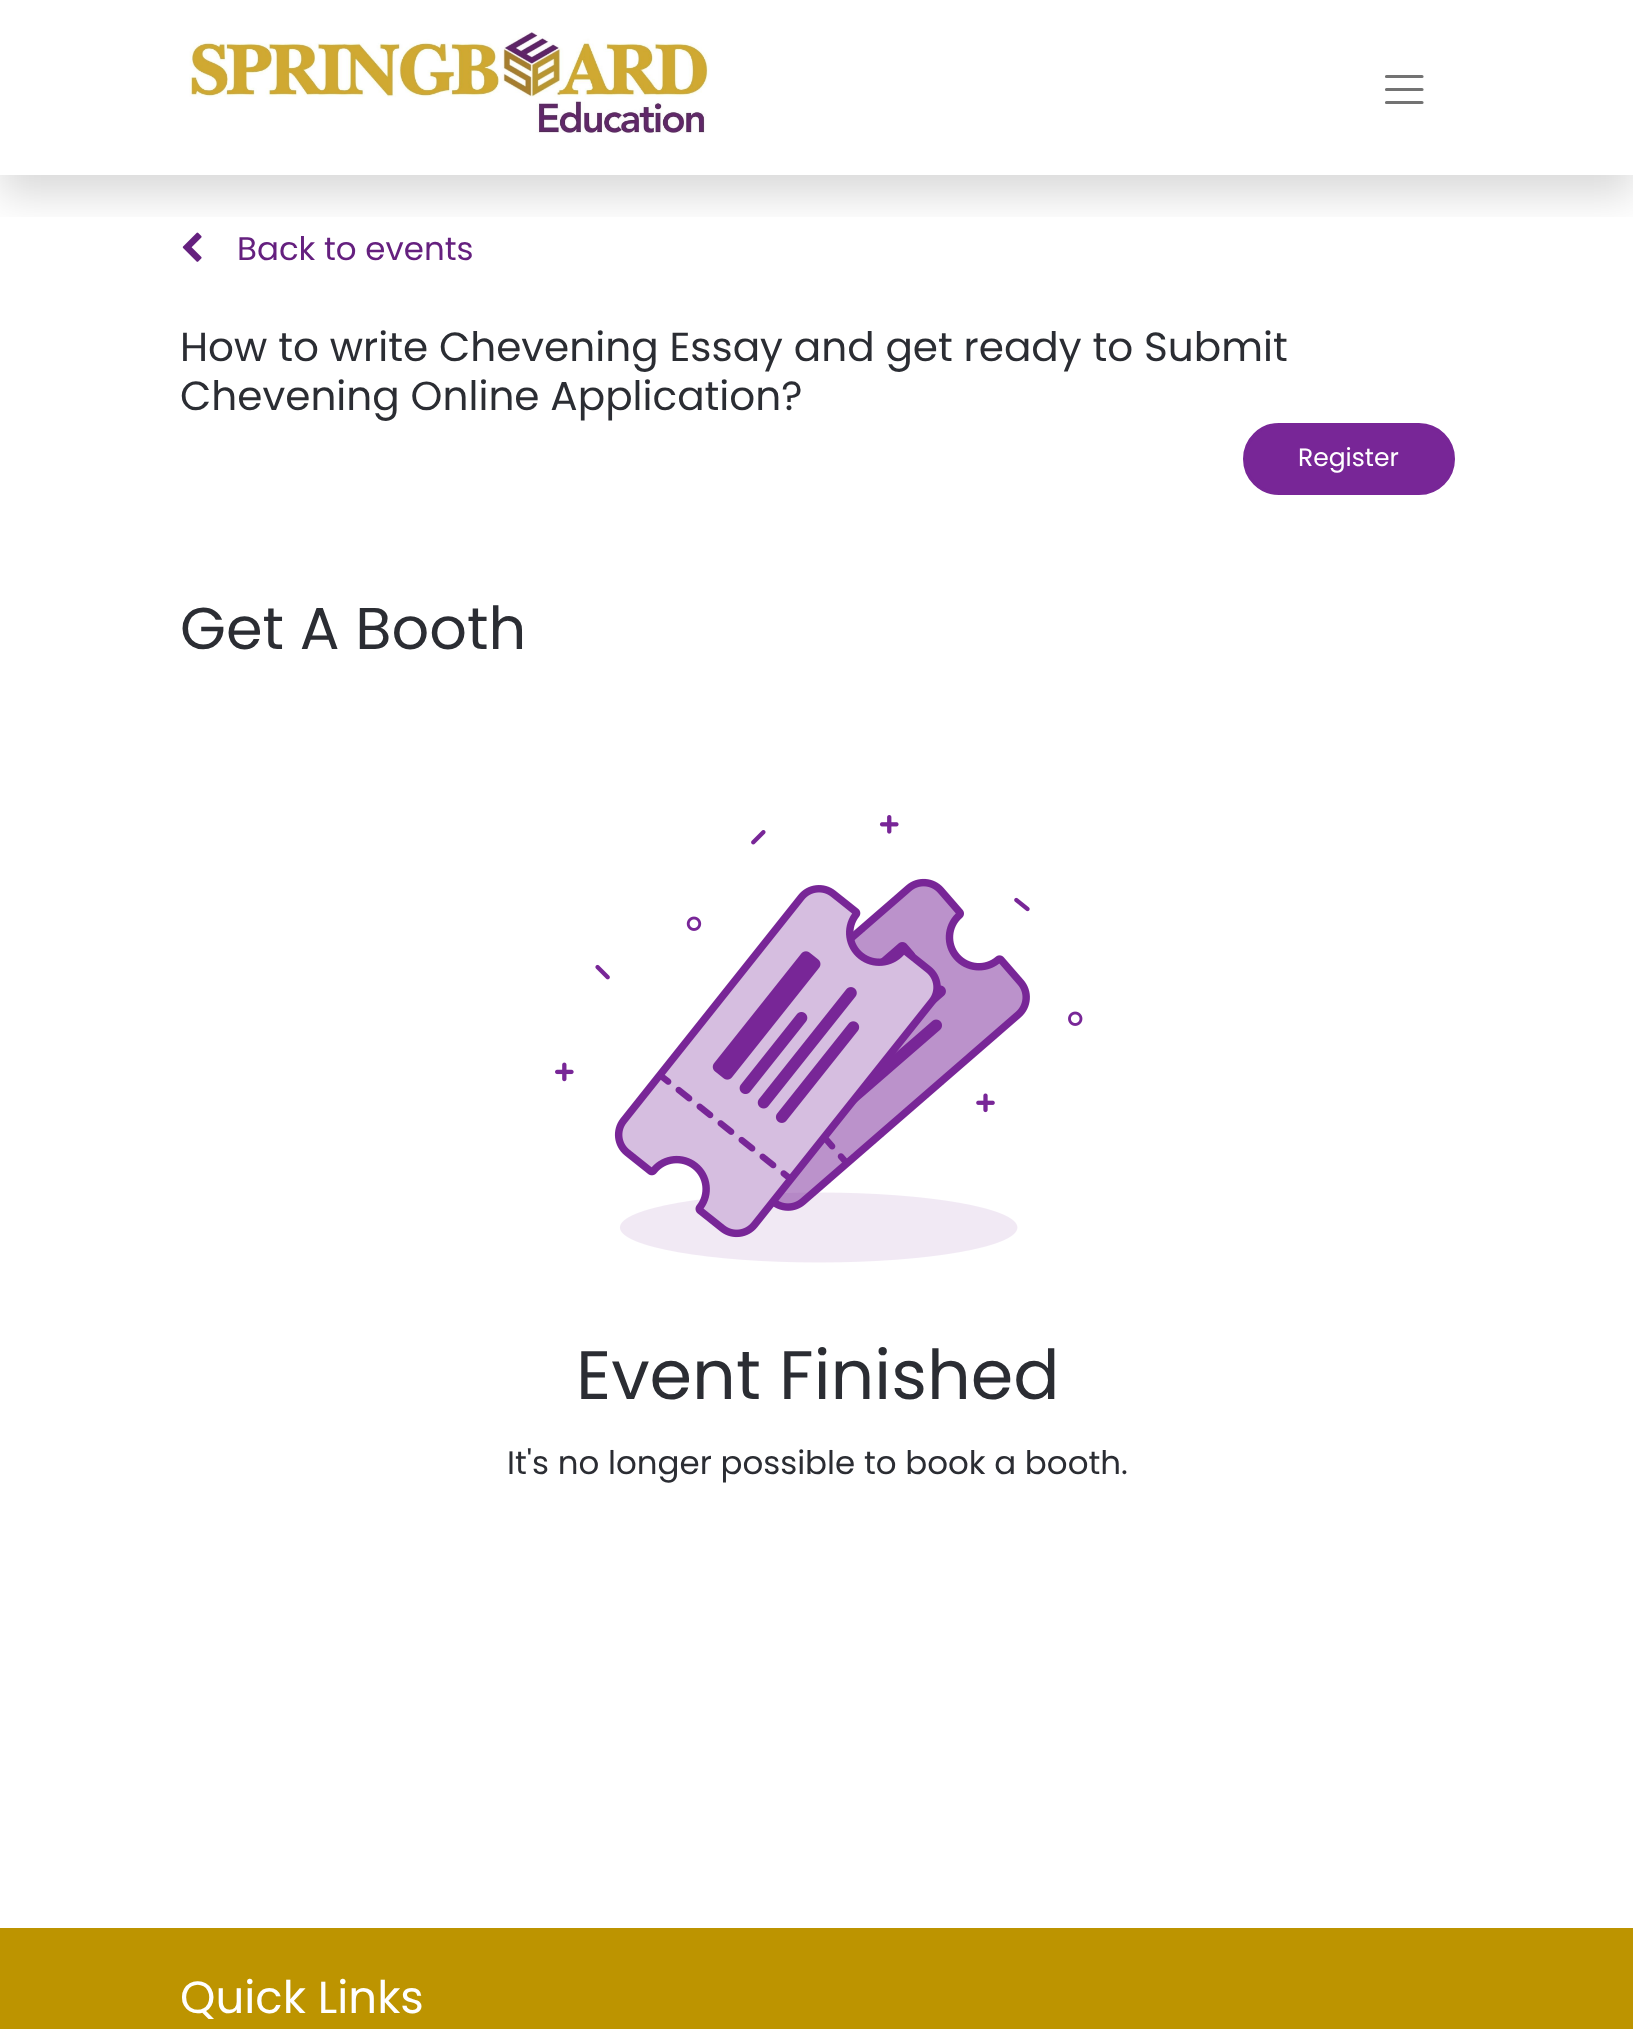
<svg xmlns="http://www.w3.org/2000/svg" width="1633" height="2029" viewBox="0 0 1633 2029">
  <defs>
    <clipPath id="clip1"><path d="M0 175h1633v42H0z"/></clipPath>
  </defs>
  <rect width="100%" height="100%" fill="#fff"/>
  <image x="182" y="232" width="20" height="30" href="img/2.png"/>
  <g clip-path="url(#clip1)">
    <path d="M0 20h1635v175H0z" fill="#00000026" filter="blur(20px)"/>
  </g>
  <image x="189" y="30" width="521" height="103" href="img/1.png"/>
  <path d="M1386.5 76.5H1422M1386.5 89.5H1422M1386.5 102.5H1422" fill="none" stroke="#737373" stroke-width="3.2" stroke-linecap="round"/>
  <rect x="1244.5" y="424.5" width="209" height="69" rx="34.5" fill="#782697" stroke="#782697" stroke-width="3"/>
  <image x="555" y="815" width="528" height="448" href="img/3.png"/>
  <path d="M0 1928h1633v101H0z" fill="#bd9400"/>
  <text x="237" y="260" font-family="Poppins" font-size="32.5" fill="#65207f">Back to events</text>
  <g font-family="Poppins" font-size="40.6" fill="#2b2d33">
    <text x="180" y="361">How to write Chevening Essay and get ready to Submit</text>
    <text x="180" y="410">Chevening Online Application?</text>
  </g>
  <text x="1298" y="466" font-family="Poppins" font-size="25" fill="#fff">Register</text>
  <text x="180" y="649" font-family="Poppins" font-size="59" fill="#2b2d33">Get A Booth</text>
  <text x="576" y="1399" font-family="Poppins" font-size="68.5" fill="#2b2d33">Event Finished</text>
  <text x="507" y="1474" font-family="Poppins" font-size="32.5" fill="#2b2d33">It's no longer possible to book a booth.</text>
  <text x="180" y="2013" font-family="Poppins" font-size="45" fill="#fff">Quick Links</text>
</svg>
